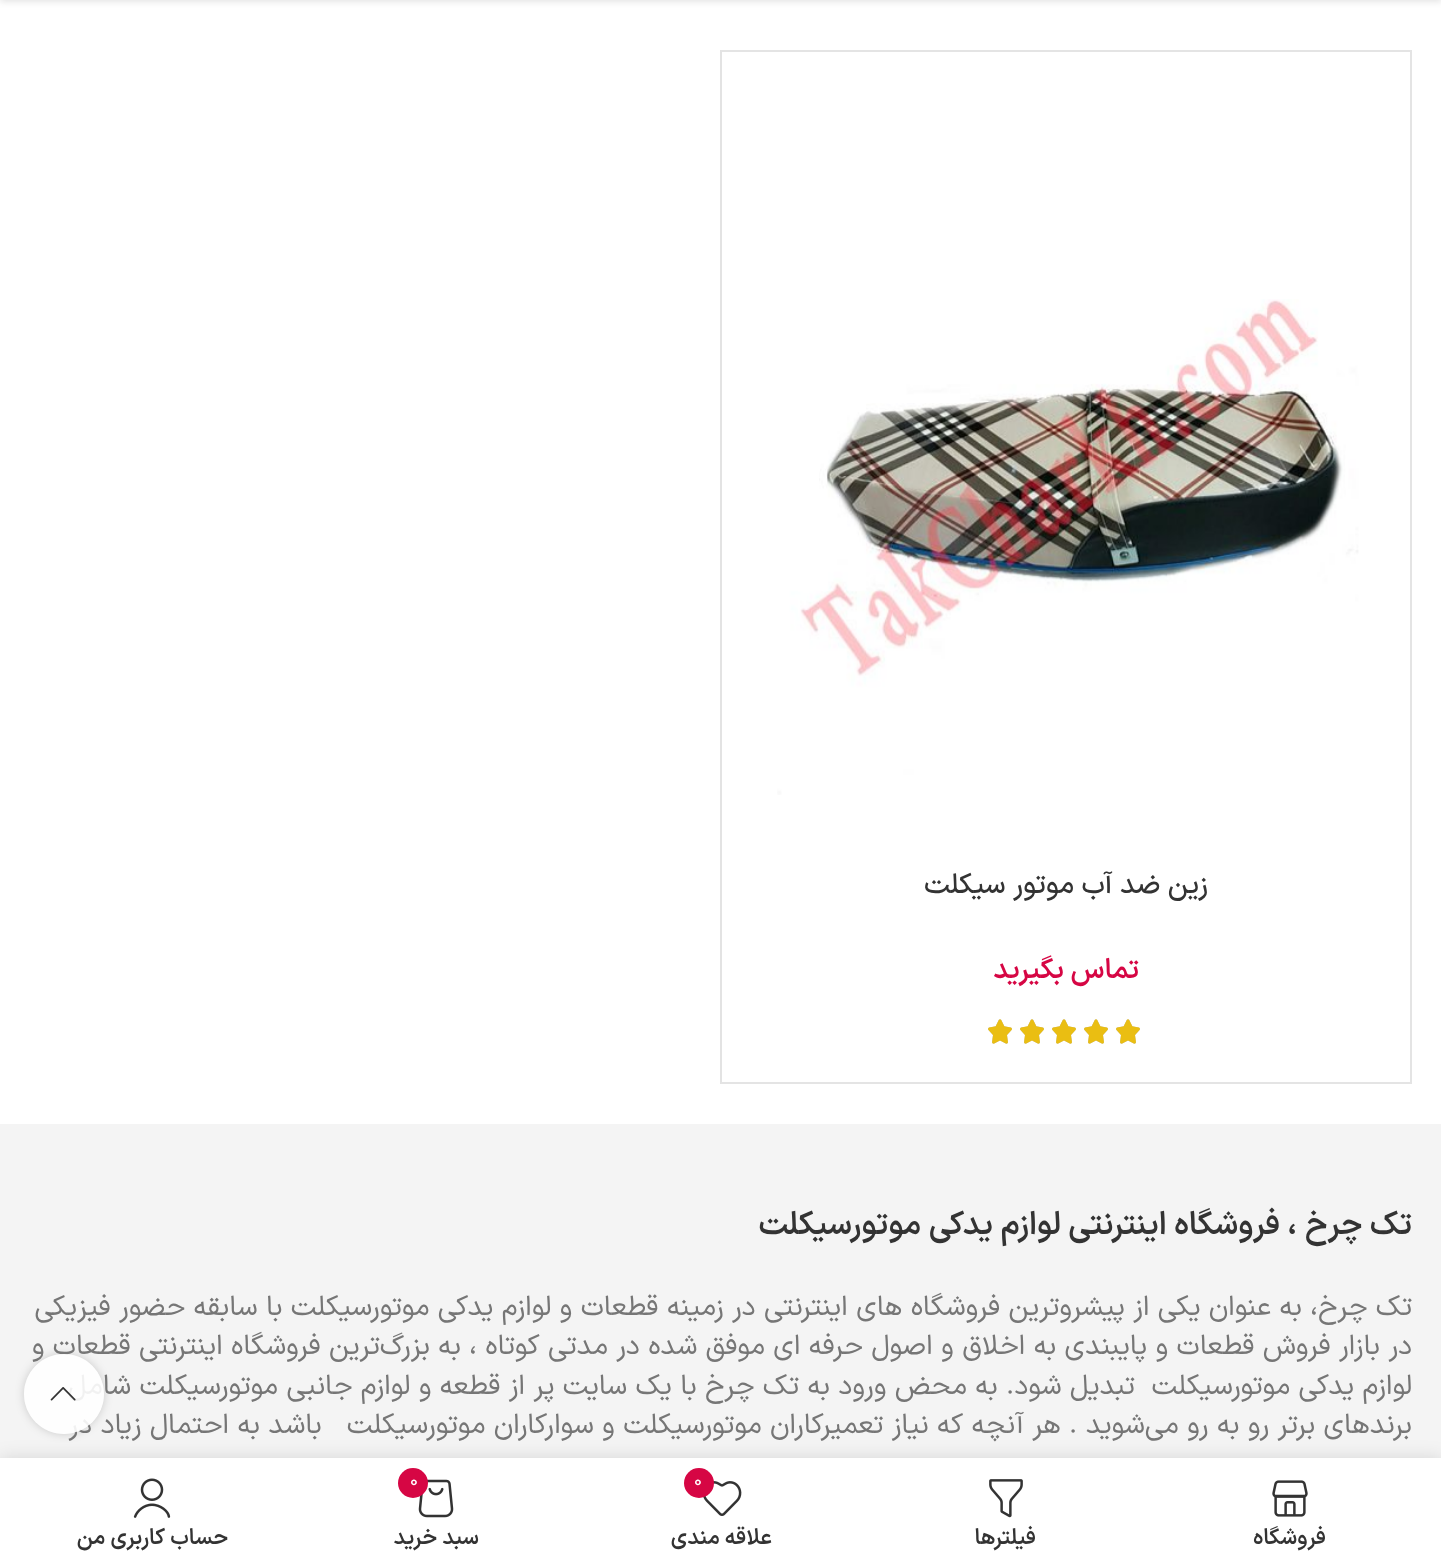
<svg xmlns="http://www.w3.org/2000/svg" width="1441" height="1567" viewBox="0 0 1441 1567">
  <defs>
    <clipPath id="clip1"><path d="M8 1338H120V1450H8ZM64 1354C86 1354 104 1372 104 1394C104 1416 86 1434 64 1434C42 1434 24 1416 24 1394C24 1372 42 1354 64 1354Z" clip-rule="evenodd"/></clipPath>
  </defs>
  <rect width="100%" height="100%" fill="#fff"/>
  <path d="M0 -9h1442v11H0z" fill="#0000001a" filter="blur(3px)"/>
  <path d="M1410 50h2v1034H1410z" fill="#e4e4e4"/>
  <path d="M720 50H1410V52H722Z" fill="#e4e4e4"/>
  <path d="M1410 1084H720L722 1082H1410Z" fill="#e4e4e4"/>
  <path d="M720 1084V50L722 52V1082Z" fill="#0000001c"/>
  <image x="777" y="299" width="582" height="496" href="img/1.png"/>
  <image x="988" y="1019" width="152" height="25" href="img/2.png"/>
  <image x="988" y="1019" width="152" height="25" href="img/3.png"/>
  <path d="M0 1124h1441v334H0z" fill="#f4f4f4"/>
  <g clip-path="url(#clip1)">
    <rect x="24" y="1354" width="80" height="80" rx="40" fill="#0000002b" filter="blur(5px)"/>
  </g>
  <text x="1208" y="893" font-family="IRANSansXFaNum" font-size="28" font-weight="500" direction="rtl" fill="#333">زین ضد آب موتور سیکلت</text>
  <text x="1139" y="978" font-family="IRANSansXFaNum" font-size="28" font-weight="600" direction="rtl" fill="#d60644">تماس بگیرید</text>
  <text x="1412" y="1234" font-family="IRANSansXFaNum" font-size="32" font-weight="600" direction="rtl" fill="#333">تک چرخ ، فروشگاه اینترنتی لوازم یدکی موتورسیکلت</text>
  <g font-family="IRANSansXFaNum" font-size="28" direction="rtl" fill="#767676">
    <text x="1412" y="1315">تک چرخ، به عنوان یکی از پیشروترین فروشگاه های اینترنتی در زمینه قطعات و لوازم یدکی موتورسیکلت با سابقه حضور فیزیکی</text>
    <text x="1412" y="1354">در بازار فروش قطعات و پایبندی به اخلاق و اصول حرفه ای موفق شده در مدتی کوتاه ، به بزرگ‌ترین فروشگاه اینترنتی قطعات و</text>
    <text x="1412" y="1394" xml:space="preserve">لوازم یدکی موتورسیکلت  تبدیل شود. به محض ورود به تک چرخ با یک سایت پر از قطعه و لوازم جانبی موتورسیکلت شامل</text>
    <text x="1412" y="1433" xml:space="preserve">برندهای برتر رو به رو می‌شوید . هر آنچه که نیاز تعمیرکاران موتورسیکلت و سوارکاران موتورسیکلت   باشد به احتمال زیاد در</text>
  </g>
  <circle cx="64" cy="1394" r="40" fill="#ffffffe6"/>
  <image x="50" y="1387" width="26" height="14" href="img/4.png"/>
  <path d="M0 1458h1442v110H0z" fill="#0000001f" filter="blur(9px)"/>
  <path d="M0 1458h1441v109H0z" fill="#fff"/>
  <image x="1272" y="1480" width="36" height="37" href="img/5.png"/>
  <text x="1326" y="1544" font-family="IRANSansXFaNum" font-size="22" font-weight="600" direction="rtl" fill="#333">فروشگاه</text>
  <image x="989" y="1479" width="34" height="39" href="img/6.png"/>
  <text x="1036" y="1544" font-family="IRANSansXFaNum" font-size="22" font-weight="600" direction="rtl" fill="#333">فیلترها</text>
  <image x="703" y="1481" width="39" height="35" href="img/7.png"/>
  <circle cx="699" cy="1483" r="15" fill="#d60644"/>
  <text x="694" y="1486" font-family="IRANSansXFaNum" font-size="18" fill="#fff">0</text>
  <text x="772" y="1544" font-family="IRANSansXFaNum" font-size="22" font-weight="600" direction="rtl" fill="#333">علاقه مندی</text>
  <image x="418" y="1479" width="36" height="39" href="img/8.png"/>
  <circle cx="413" cy="1483" r="15" fill="#d60644"/>
  <text x="410" y="1486" font-family="IRANSansXFaNum" font-size="18" fill="#fff">0</text>
  <text x="479" y="1544" font-family="IRANSansXFaNum" font-size="22" font-weight="600" direction="rtl" fill="#333">سبد خرید</text>
  <image x="133" y="1478" width="38" height="40" href="img/9.png"/>
  <text x="228" y="1544" font-family="IRANSansXFaNum" font-size="22" font-weight="600" direction="rtl" fill="#333">حساب کاربری من</text>
</svg>
